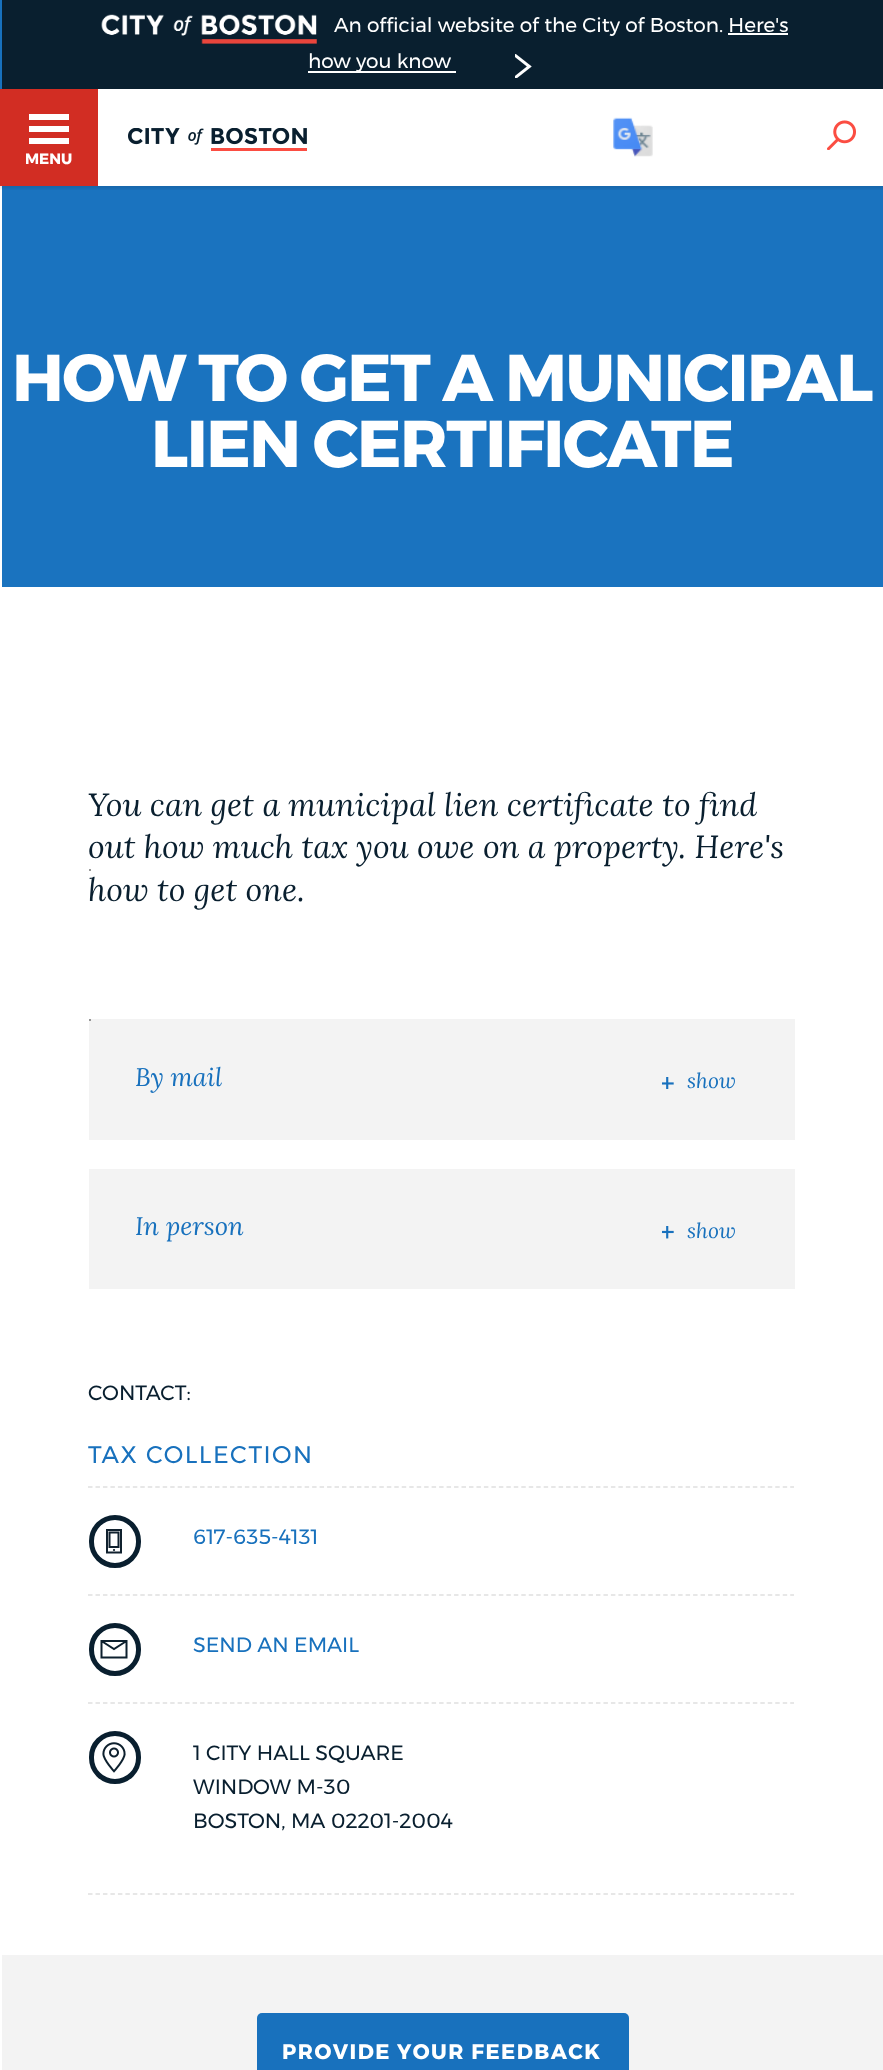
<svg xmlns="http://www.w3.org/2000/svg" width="883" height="2070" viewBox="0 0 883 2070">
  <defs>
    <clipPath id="clip1"><path d="M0 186h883v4H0z"/></clipPath>
    <clipPath id="clip2"><path d="M106 1529H122V1553.5H106Z"/></clipPath>
    <clipPath id="clip3"><path d="M108.5 1531.5H119.5V1548H108.5Z"/></clipPath>
  </defs>
  <rect width="100%" height="100%" fill="#fff"/>
  <path d="M0 0h2v89H0z" fill="#1871bd"/>
  <path d="M2 0h881v89H2z" fill="#091f2f"/>
  <image x="101" y="14" width="216" height="30" href="img/1.png"/>
  <path d="M728 33h60v2H728z" fill="#fff"/>
  <path d="M308 71h142v2H308z" fill="#fff"/>
  <path d="M450 71h6v2H450z" fill="#fff"/>
  <image x="515" y="54" width="17" height="24" href="img/2.png"/>
  <path d="M2 186h881v401H2z" fill="#1a73bf"/>
  <g clip-path="url(#clip1)">
    <path d="M-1 89h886v100H-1z" fill="#0000001a" filter="blur(1.5px)"/>
  </g>
  <image x="128" y="128" width="179" height="23" href="img/3.png"/>
  <image x="613" y="117" width="40" height="40" href="img/4.png"/>
  <image x="827" y="120" width="29" height="30" href="img/5.png"/>
  <path d="M0 89h98v97H0z" fill="#d22d23"/>
  <path d="M29 138h40v6H29z" fill="#fff"/>
  <path d="M29 114h40v6H29z" fill="#fff"/>
  <path d="M29 126h40v6H29z" fill="#fff"/>
  <circle cx="90" cy="870" r="1" fill="#767676"/>
  <path d="M89 1019h706v121H89z" fill="#f3f3f3"/>
  <image x="662" y="1077" width="12" height="12" href="img/6.png"/>
  <circle cx="90" cy="1020" r="1" fill="#767676"/>
  <path d="M89 1169h706v120H89z" fill="#f3f3f3"/>
  <image x="662" y="1226" width="12" height="13" href="img/7.png"/>
  <path d="M88 1894H794" fill="none" stroke="#e0e0e0" stroke-width="1.5" stroke-dasharray="4.5 2.97"/>
  <path d="M88 1487H794" fill="none" stroke="#e0e0e0" stroke-width="1.5" stroke-dasharray="4.5 2.97"/>
  <path d="M88 1595H794" fill="none" stroke="#e0e0e0" stroke-width="1.5" stroke-dasharray="4.5 2.97"/>
  <rect x="91.5" y="1517.5" width="47" height="48" rx="23.5" fill="none" stroke="#091f2f" stroke-width="5"/>
  <g clip-path="url(#clip2)">
    <g clip-path="url(#clip2)">
      <path d="M106 1529H122V1553.5H106Z" fill="none" stroke="#10212e" stroke-width="4" stroke-linecap="round"/>
    </g>
  </g>
  <g clip-path="url(#clip3)">
    <path d="M108.5 1531.5H119.5V1548H108.5Z" fill="none" stroke="#10212e" stroke-width="4" stroke-linecap="round"/>
  </g>
  <path d="M114 1549C115.5 1549 115.5 1551 114 1551C112.5 1551 112.5 1549 114 1549Z" fill="#10212e"/>
  <path d="M88 1703H794" fill="none" stroke="#e0e0e0" stroke-width="1.5" stroke-dasharray="4.5 2.97"/>
  <rect x="91.5" y="1625.5" width="47" height="48" rx="23.5" fill="none" stroke="#091f2f" stroke-width="5"/>
  <path d="M101.5 1641H126.5V1657.5H101.5ZM126.5 1641L114 1649L101.5 1641" fill="none" stroke="#0d202e" stroke-width="2"/>
  <rect x="91.5" y="1733.5" width="47" height="48" rx="23.5" fill="none" stroke="#091f2f" stroke-width="5"/>
  <image x="102" y="1742" width="24" height="31" href="img/8.png"/>
  <path d="M2 1955h881v115H2z" fill="#f3f3f3"/>
  <rect x="257" y="2013" width="372" height="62" rx="5" fill="#1871bd"/>
  <g font-family="Montserrat" font-size="20" fill="#fff">
    <text x="334" y="32">An official website of the City of Boston. Here's</text>
    <text x="308" y="68">how you know</text>
  </g>
  <text x="25" y="164" font-family="Montserrat" font-size="15" font-weight="bold" fill="#fff">MENU</text>
  <g font-family="Montserrat" font-size="66" font-weight="bold" letter-spacing="-1.5" fill="#fff">
    <text x="12" y="401">HOW TO GET A MUNICIPAL</text>
    <text x="151" y="467">LIEN CERTIFICATE</text>
  </g>
  <g font-family="Lora" font-size="32" font-style="italic" fill="#091f2f">
    <text x="88" y="816">You can get a municipal lien certificate to find</text>
    <text x="88" y="858">out how much tax you owe on a property. Here's</text>
    <text x="88" y="901">how to get one.</text>
  </g>
  <text x="135" y="1086" font-family="Lora" font-size="25.5" font-style="italic" fill="#1871bd">By mail</text>
  <text x="687" y="1088" font-family="Lora" font-size="21" font-style="italic" fill="#1871bd">show</text>
  <text x="135" y="1235" font-family="Lora" font-size="25.5" font-style="italic" fill="#1871bd">In person</text>
  <text x="687" y="1238" font-family="Lora" font-size="21" font-style="italic" fill="#1871bd">show</text>
  <text x="88" y="1400" font-family="Montserrat" font-size="20.7" fill="#091f2f">CONTACT:</text>
  <text x="88" y="1463" font-family="Montserrat" font-size="24" letter-spacing="1.5" fill="#1871bd">TAX COLLECTION</text>
  <g font-family="Montserrat" font-size="20.7" fill="#1871bd">
    <text x="193" y="1544">617-635-4131</text>
    <text x="193" y="1652">SEND AN EMAIL</text>
  </g>
  <g font-family="Montserrat" font-size="20.7" fill="#091f2f">
    <text x="193" y="1760">1 CITY HALL SQUARE</text>
    <text x="193" y="1794">WINDOW M-30</text>
    <text x="193" y="1828">BOSTON, MA 02201-2004</text>
  </g>
  <text x="282" y="2059" font-family="Montserrat" font-size="21" font-weight="bold" letter-spacing="1.5" fill="#fff">PROVIDE YOUR FEEDBACK</text>
</svg>
